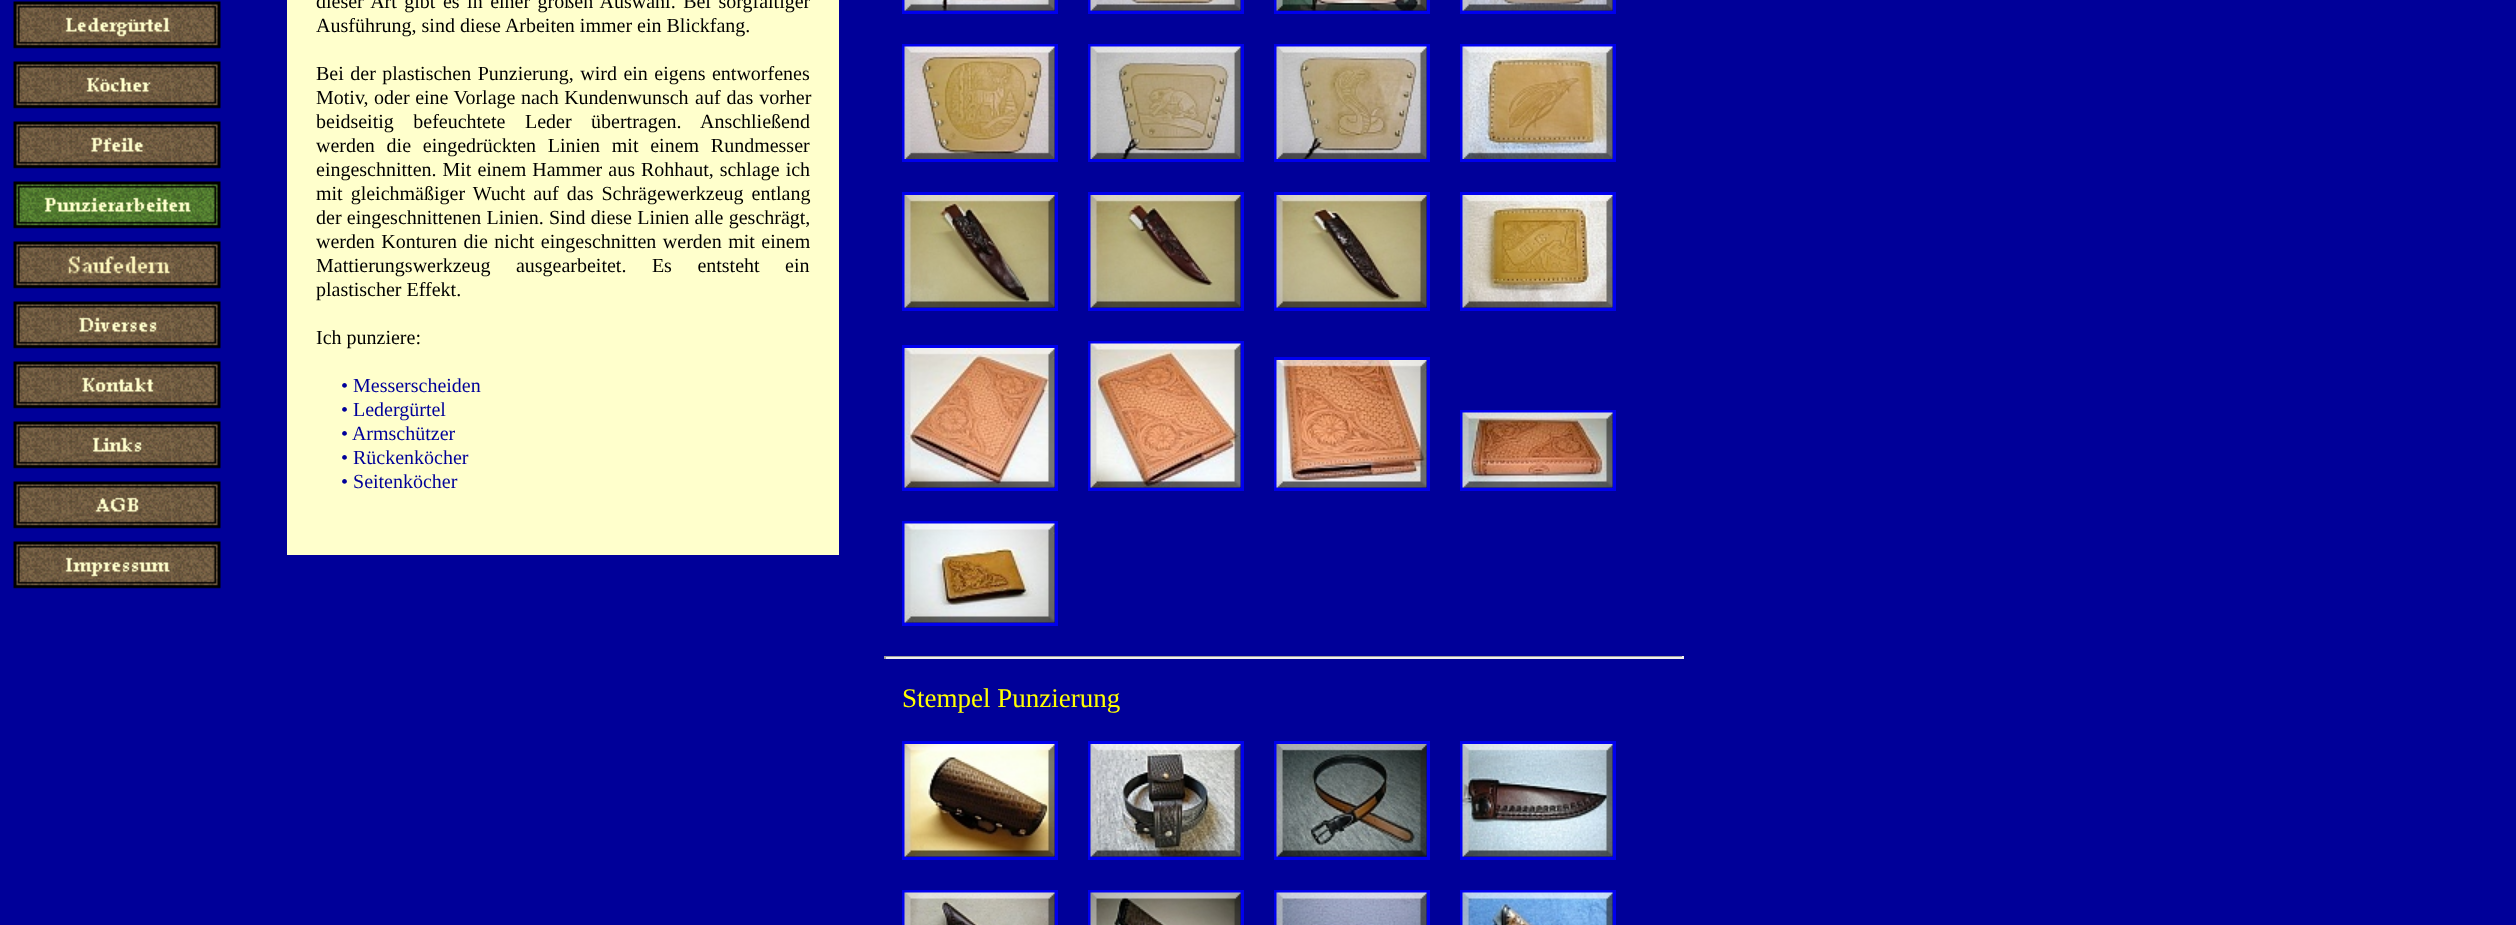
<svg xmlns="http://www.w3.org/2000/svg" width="2516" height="925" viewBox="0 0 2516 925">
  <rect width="100%" height="100%" fill="#009"/>
  <image x="13" y="1" width="208" height="48" href="img/1.png"/>
  <image x="13" y="61" width="208" height="48" href="img/2.png"/>
  <image x="13" y="121" width="208" height="48" href="img/3.png"/>
  <image x="13" y="181" width="208" height="48" href="img/4.png"/>
  <image x="13" y="241" width="208" height="48" href="img/5.png"/>
  <image x="13" y="301" width="208" height="48" href="img/6.png"/>
  <image x="13" y="361" width="208" height="48" href="img/7.png"/>
  <image x="13" y="421" width="208" height="48" href="img/8.png"/>
  <image x="13" y="481" width="208" height="48" href="img/9.png"/>
  <image x="13" y="541" width="208" height="48" href="img/10.png"/>
  <path d="M287 0h552v555H287z" fill="#ffc"/>
  <path d="M903.5 -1.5h153v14H903.5z" fill="none" stroke="#00e" stroke-width="3"/>
  <path d="M1089.5 -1.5h153v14H1089.5z" fill="none" stroke="#00e" stroke-width="3"/>
  <path d="M1275.5 -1.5h153v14H1275.5z" fill="none" stroke="#00e" stroke-width="3"/>
  <path d="M1461.5 -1.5h153v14H1461.5z" fill="none" stroke="#00e" stroke-width="3"/>
  <image x="904" y="0" width="151" height="11" href="img/11.png"/>
  <image x="1090" y="0" width="151" height="11" href="img/12.png"/>
  <image x="1276" y="0" width="151" height="11" href="img/13.png"/>
  <image x="1462" y="0" width="151" height="11" href="img/14.png"/>
  <path d="M903.5 45.5h153v115H903.5z" fill="none" stroke="#00e" stroke-width="3"/>
  <path d="M1089.5 45.5h153v115H1089.5z" fill="none" stroke="#00e" stroke-width="3"/>
  <path d="M1275.5 45.5h153v115H1275.5z" fill="none" stroke="#00e" stroke-width="3"/>
  <path d="M1461.5 45.5h153v115H1461.5z" fill="none" stroke="#00e" stroke-width="3"/>
  <image x="904" y="46" width="151" height="113" href="img/15.png"/>
  <image x="1090" y="46" width="151" height="113" href="img/16.png"/>
  <image x="1276" y="46" width="151" height="113" href="img/17.png"/>
  <image x="1462" y="46" width="151" height="113" href="img/18.png"/>
  <path d="M903.5 193.5h153v116H903.5z" fill="none" stroke="#00e" stroke-width="3"/>
  <path d="M1089.5 193.5h153v116H1089.5z" fill="none" stroke="#00e" stroke-width="3"/>
  <path d="M1275.5 193.5h153v116H1275.5z" fill="none" stroke="#00e" stroke-width="3"/>
  <path d="M1461.5 193.5h153v116H1461.5z" fill="none" stroke="#00e" stroke-width="3"/>
  <image x="904" y="195" width="151" height="113" href="img/19.png"/>
  <image x="1090" y="195" width="151" height="113" href="img/20.png"/>
  <image x="1276" y="195" width="151" height="113" href="img/21.png"/>
  <image x="1462" y="195" width="151" height="113" href="img/22.png"/>
  <path d="M1089.5 342.5h153v147H1089.5z" fill="none" stroke="#00e" stroke-width="3"/>
  <path d="M903.5 346.5h153v143H903.5z" fill="none" stroke="#00e" stroke-width="3"/>
  <image x="1090" y="343" width="151" height="145" href="img/23.png"/>
  <image x="904" y="348" width="151" height="140" href="img/24.png"/>
  <path d="M1275.5 358.5h153v131H1275.5z" fill="none" stroke="#00e" stroke-width="3"/>
  <image x="1276" y="360" width="151" height="128" href="img/25.png"/>
  <path d="M1461.5 411.5h153v78H1461.5z" fill="none" stroke="#00e" stroke-width="3"/>
  <image x="1462" y="412" width="151" height="76" href="img/26.png"/>
  <path d="M903.5 522.5h153v102H903.5z" fill="none" stroke="#00e" stroke-width="3"/>
  <image x="904" y="523" width="151" height="100" href="img/27.png"/>
  <path d="M884 656h799v1H884z" fill="#9f9f9f"/>
  <path d="M1682 656h2v3H1682z" fill="#eee"/>
  <path d="M884 657h799v2H884z" fill="#eee"/>
  <path d="M884 656h2v3H884z" fill="#9f9f9f"/>
  <path d="M903.5 742.5h153v116H903.5z" fill="none" stroke="#00e" stroke-width="3"/>
  <path d="M1089.5 742.5h153v116H1089.5z" fill="none" stroke="#00e" stroke-width="3"/>
  <path d="M1275.5 742.5h153v116H1275.5z" fill="none" stroke="#00e" stroke-width="3"/>
  <path d="M1461.5 742.5h153v116H1461.5z" fill="none" stroke="#00e" stroke-width="3"/>
  <image x="904" y="744" width="151" height="113" href="img/28.png"/>
  <image x="1090" y="744" width="151" height="113" href="img/29.png"/>
  <image x="1276" y="744" width="151" height="113" href="img/30.png"/>
  <image x="1462" y="744" width="151" height="113" href="img/31.png"/>
  <path d="M903.5 891.5h153v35H903.5z" fill="none" stroke="#00e" stroke-width="3"/>
  <path d="M1089.5 891.5h153v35H1089.5z" fill="none" stroke="#00e" stroke-width="3"/>
  <path d="M1275.5 891.5h153v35H1275.5z" fill="none" stroke="#00e" stroke-width="3"/>
  <path d="M1461.5 891.5h153v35H1461.5z" fill="none" stroke="#00e" stroke-width="3"/>
  <image x="904" y="892" width="151" height="33" href="img/32.png"/>
  <image x="1090" y="892" width="151" height="33" href="img/33.png"/>
  <image x="1276" y="892" width="151" height="33" href="img/34.png"/>
  <image x="1462" y="892" width="151" height="33" href="img/35.png"/>
  <g font-family="Liberation Serif" font-size="20" fill="#000">
    <text x="316" y="8" word-spacing="2.5">dieser Art gibt es in einer großen Auswahl. Bei sorgfältiger</text>
    <text x="316" y="32">Ausführung, sind diese Arbeiten immer ein Blickfang.</text>
    <text x="316" y="80" word-spacing="1.5">Bei der plastischen Punzierung, wird ein eigens entworfenes</text>
    <text x="316" y="104" word-spacing="0.5">Motiv, oder eine Vorlage nach Kundenwunsch</text>
    <text x="695" y="104" word-spacing="1">auf das vorher</text>
    <text x="316" y="128" word-spacing="14.5">beidseitig befeuchtete Leder übertragen. Anschließend</text>
    <text x="316" y="152" word-spacing="6.75">werden die eingedrückten Linien mit einem Rundmesser</text>
    <text x="316" y="176" word-spacing="1">eingeschnitten. Mit einem Hammer aus Rohhaut, schlage ich</text>
    <text x="316" y="200" word-spacing="3">mit gleichmäßiger Wucht auf das Schrägewerkzeug entlang</text>
    <text x="316" y="224" word-spacing="0.25">der eingeschnittenen Linien. Sind diese Linien alle geschrägt,</text>
    <text x="316" y="248" word-spacing="1.5">werden Konturen die nicht eingeschnitten werden mit einem</text>
    <text x="316" y="272" word-spacing="20.5">Mattierungswerkzeug ausgearbeitet. Es entsteht ein</text>
    <text x="316" y="296">plastischer Effekt.</text>
    <text x="316" y="344">Ich punziere:</text>
  </g>
  <g font-family="Liberation Serif" font-size="20" fill="#009">
    <text x="341" y="392">• Messerscheiden</text>
    <text x="341" y="416">• Ledergürtel</text>
    <text x="341" y="440">• Armschützer</text>
    <text x="341" y="464">• Rückenköcher</text>
    <text x="341" y="488">• Seitenköcher</text>
  </g>
  <text x="902" y="707" font-family="Liberation Serif" font-size="27" fill="#ff0">Stempel Punzierung</text>
</svg>
